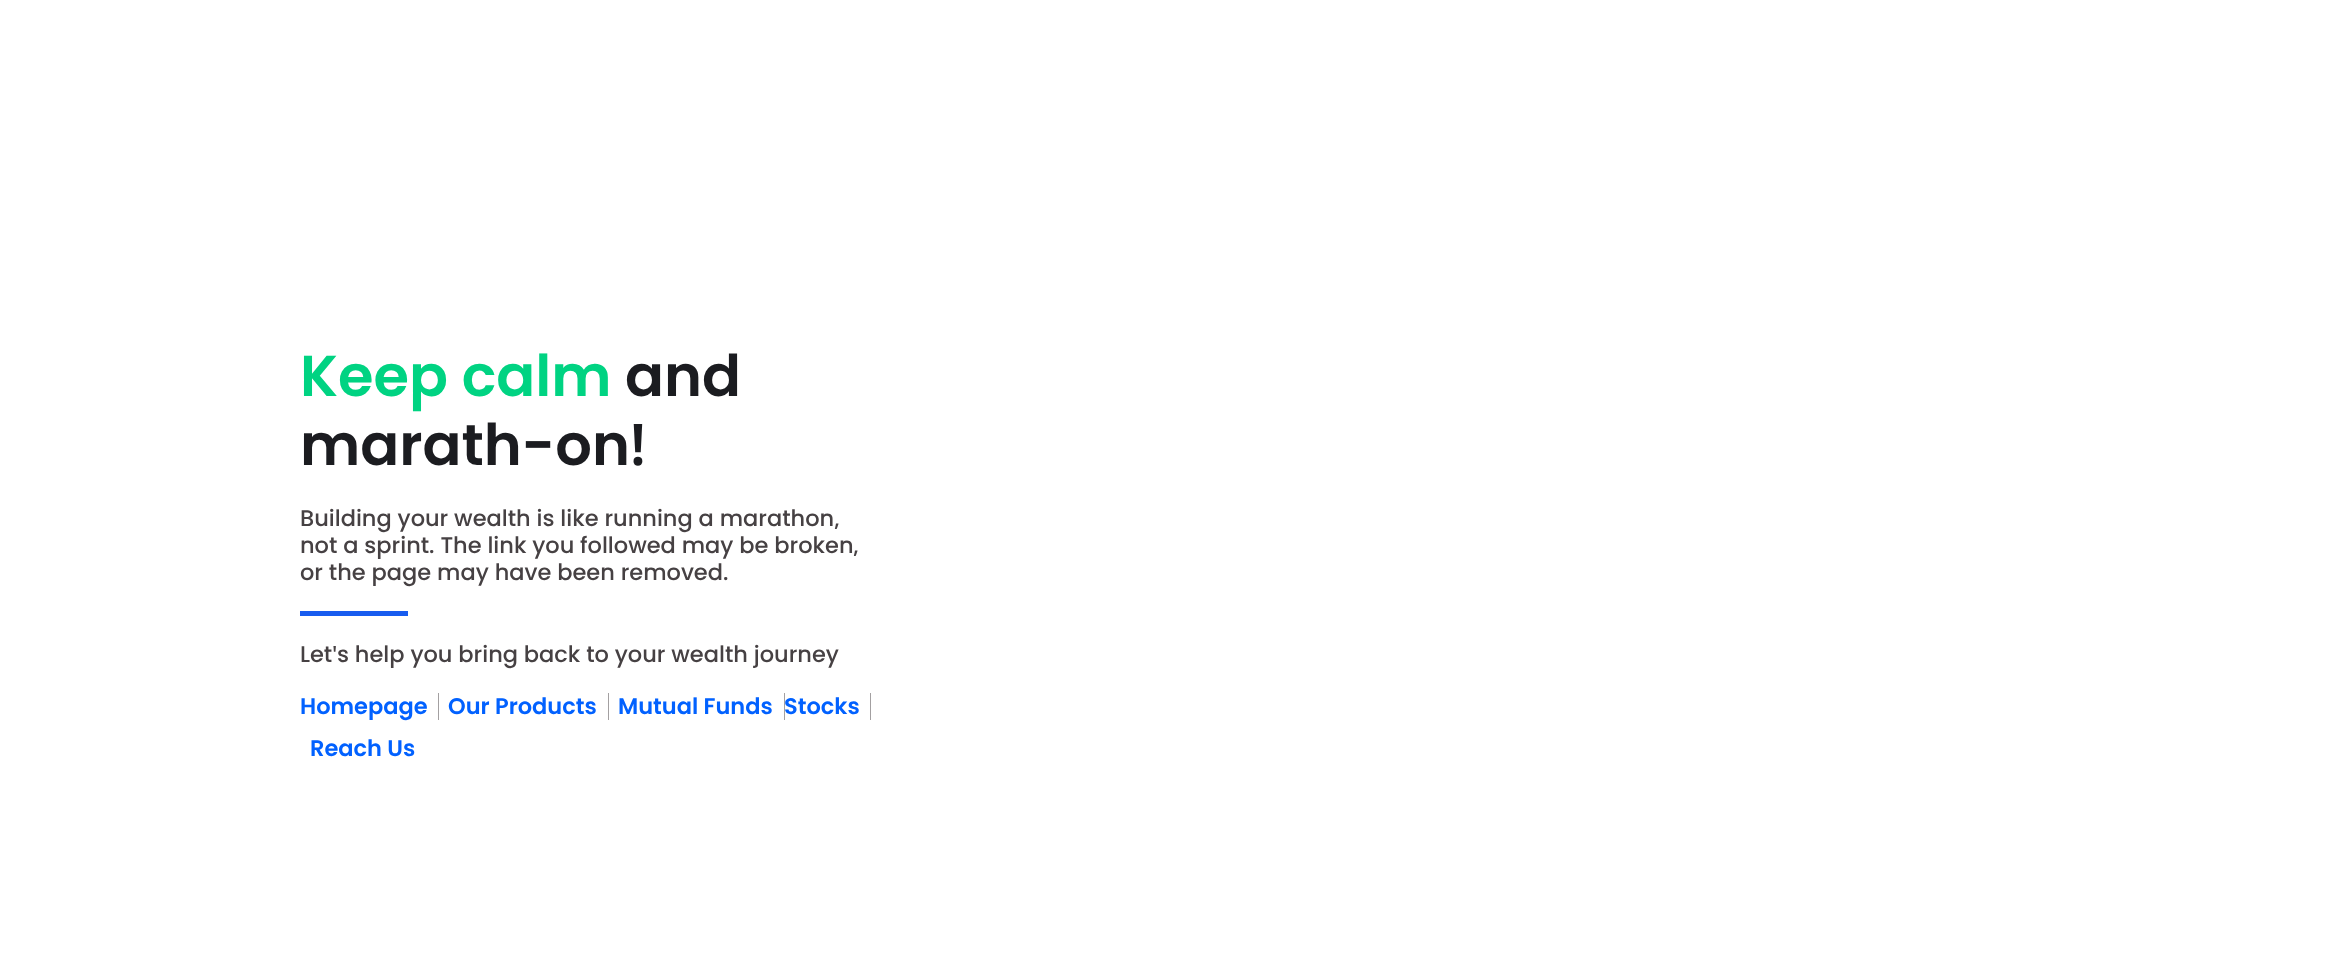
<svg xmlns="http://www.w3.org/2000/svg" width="2332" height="963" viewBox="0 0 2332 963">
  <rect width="100%" height="100%" fill="#fff"/>
  <path d="M300 611h108v5H300z" fill="#185cef"/>
  <path d="M438 693h1v27H438z" fill="#a3a0a1"/>
  <path d="M608 693h1v27H608z" fill="#a3a0a1"/>
  <path d="M784 693h1v27H784z" fill="#a3a0a1"/>
  <path d="M870 693h1v27H870z" fill="#a3a0a1"/>
  <text x="300" y="396" font-family="Poppins" font-size="57.5" font-weight="600" fill="#00d382">Keep calm</text>
  <g font-family="Poppins" font-size="57.5" font-weight="600" fill="#1b1c20">
    <text x="625" y="396">and</text>
    <text x="300" y="465">marath-on</text>
  </g>
  <text x="630" y="465" font-family="Noto Sans" font-size="57.5" font-weight="600" fill="#1b1c20">!</text>
  <text x="300" y="526" font-family="Poppins" font-size="22.5" font-weight="500" fill="#464143">Building your wealth is like running a marathon</text>
  <text x="834" y="526" font-family="Noto Sans" font-size="22.5" font-weight="500" fill="#464143">,</text>
  <text x="300" y="553" font-family="Poppins" font-size="22.5" font-weight="500" fill="#464143">not a sprint. The link you followed may be broken</text>
  <text x="853" y="553" font-family="Noto Sans" font-size="22.5" font-weight="500" fill="#464143">,</text>
  <g font-family="Poppins" font-size="22.5" font-weight="500" fill="#464143">
    <text x="300" y="580">or the page may have been removed.</text>
    <text x="300" y="662">Let</text>
  </g>
  <text x="332" y="662" font-family="Noto Sans" font-size="22.5" font-weight="500" fill="#464143">'</text>
  <text x="337" y="662" font-family="Poppins" font-size="22.5" font-weight="500" fill="#464143">s help you bring back to your wealth journey</text>
  <g font-family="Poppins" font-size="22.5" font-weight="600" fill="#0161ff">
    <text x="300" y="714">Homepage</text>
    <text x="448" y="714">Our Products</text>
    <text x="618" y="714">Mutual Funds</text>
    <text x="784" y="714">Stocks</text>
    <text x="310" y="756">Reach Us</text>
  </g>
</svg>
